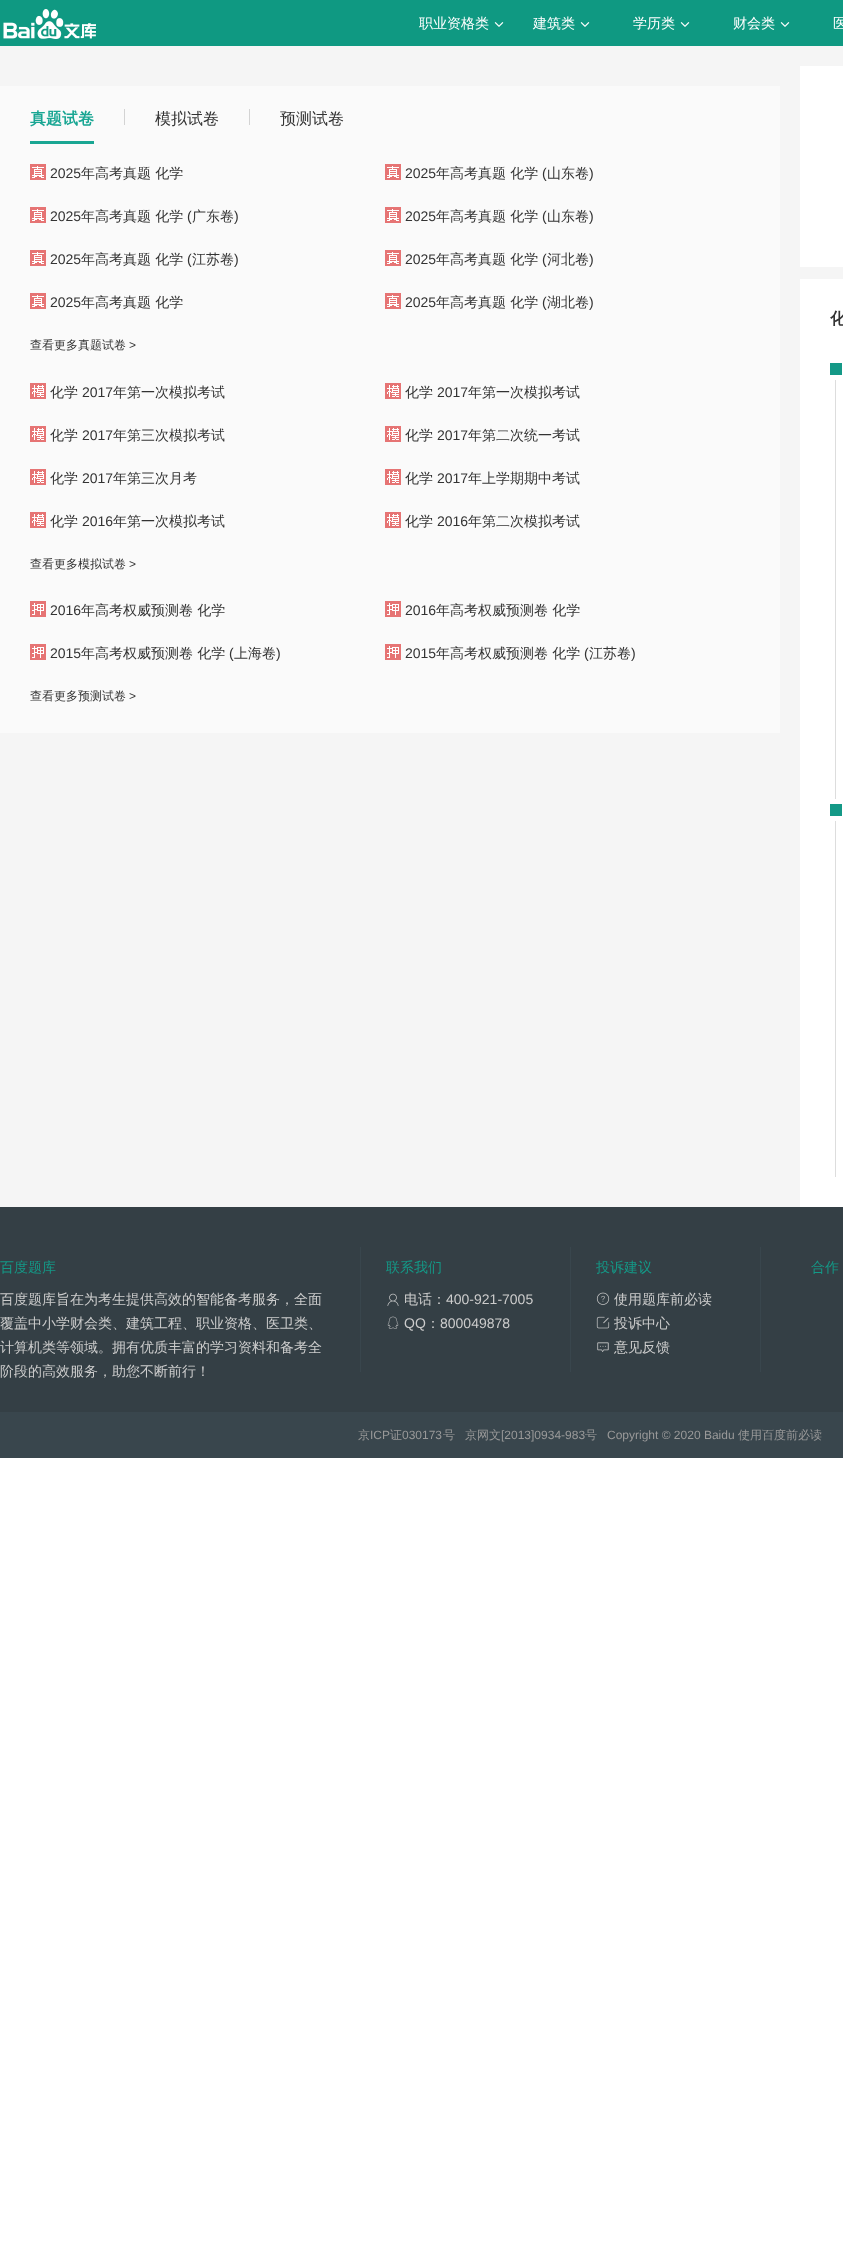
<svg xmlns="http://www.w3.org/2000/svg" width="843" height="2250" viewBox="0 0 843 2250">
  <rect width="100%" height="100%" fill="#fff"/>
  <path d="M0 0h843v46H0z" fill="#0f9982"/>
  <image x="3" y="9" width="93" height="30" href="img/1.png"/>
  <image x="494" y="22" width="10" height="5" href="img/2.png"/>
  <image x="580" y="22" width="10" height="5" href="img/2.png"/>
  <image x="680" y="22" width="10" height="5" href="img/2.png"/>
  <image x="780" y="22" width="10" height="5" href="img/2.png"/>
  <path d="M0 46h843v1161H0z" fill="#f5f5f5"/>
  <path d="M0 86h780v647H0z" fill="#fafafa"/>
  <path d="M30 141h64v3H30z" fill="#19a693"/>
  <path d="M124 109h1v16H124z" fill="#d3d3d3"/>
  <path d="M249 109h1v16H249z" fill="#d3d3d3"/>
  <image x="30" y="164" width="16" height="16" href="img/3.png"/>
  <image x="385" y="164" width="16" height="16" href="img/3.png"/>
  <image x="30" y="207" width="16" height="16" href="img/3.png"/>
  <image x="385" y="207" width="16" height="16" href="img/3.png"/>
  <image x="30" y="250" width="16" height="16" href="img/3.png"/>
  <image x="385" y="250" width="16" height="16" href="img/3.png"/>
  <image x="30" y="293" width="16" height="16" href="img/3.png"/>
  <image x="385" y="293" width="16" height="16" href="img/3.png"/>
  <image x="30" y="383" width="16" height="16" href="img/4.png"/>
  <image x="385" y="383" width="16" height="16" href="img/4.png"/>
  <image x="30" y="426" width="16" height="16" href="img/4.png"/>
  <image x="385" y="426" width="16" height="16" href="img/4.png"/>
  <image x="30" y="469" width="16" height="16" href="img/4.png"/>
  <image x="385" y="469" width="16" height="16" href="img/4.png"/>
  <image x="30" y="512" width="16" height="16" href="img/4.png"/>
  <image x="385" y="512" width="16" height="16" href="img/4.png"/>
  <image x="30" y="601" width="16" height="16" href="img/5.png"/>
  <image x="385" y="601" width="16" height="16" href="img/5.png"/>
  <image x="30" y="644" width="16" height="16" href="img/5.png"/>
  <image x="385" y="644" width="16" height="16" href="img/5.png"/>
  <path d="M800 66h43v201H800z" fill="#fff"/>
  <path d="M800 279h43v928H800z" fill="#fff"/>
  <path d="M830 363h12v12H830z" fill="#149987"/>
  <path d="M835 380h1v419H835z" fill="#ddd"/>
  <path d="M830 804h12v12H830z" fill="#149987"/>
  <path d="M835 821h1v356H835z" fill="#ddd"/>
  <path d="M0 1207h843v205H0z" fill="#343f45"/>
  <path d="M360 1247h1v125H360z" fill="#39464d"/>
  <path d="M570 1247h1v125H570z" fill="#39464d"/>
  <image x="387" y="1293" width="12" height="13" href="img/6.png"/>
  <image x="387" y="1316" width="12" height="13" href="img/7.png"/>
  <path d="M760 1247h1v125H760z" fill="#39464d"/>
  <image x="596" y="1292" width="14" height="13" href="img/8.png"/>
  <image x="596" y="1316" width="14" height="13" href="img/9.png"/>
  <image x="597" y="1342" width="12" height="10" href="img/10.png"/>
  <path d="M0 1412h843v46H0z" fill="#39464d"/>
  <g font-family="WenQuanYi Zen Hei" font-size="14" font-weight="500" fill="#fff">
    <text x="419" y="28">职业资格类</text>
    <text x="533" y="28">建筑类</text>
    <text x="633" y="28">学历类</text>
    <text x="733" y="28">财会类</text>
    <text x="833" y="28">医</text>
  </g>
  <text x="30" y="124" font-family="WenQuanYi Zen Hei" font-size="16" font-weight="bold" fill="#19a693">真题试卷</text>
  <g font-family="WenQuanYi Zen Hei" font-size="16" font-weight="500" fill="#333">
    <text x="155" y="124">模拟试卷</text>
    <text x="280" y="124">预测试卷</text>
  </g>
  <text x="50" y="178" font-family="Liberation Sans" font-size="14" fill="#333">2025</text>
  <text x="81" y="178" font-family="WenQuanYi Zen Hei" font-size="14" font-weight="500" fill="#333">年高考真题 化学</text>
  <text x="405" y="178" font-family="Liberation Sans" font-size="14" fill="#333">2025</text>
  <text x="436" y="178" font-family="WenQuanYi Zen Hei" font-size="14" font-weight="500" fill="#333">年高考真题 化学</text>
  <text x="542" y="178" font-family="Liberation Sans" font-size="14" fill="#333">(</text>
  <text x="547" y="178" font-family="WenQuanYi Zen Hei" font-size="14" font-weight="500" fill="#333">山东卷</text>
  <g font-family="Liberation Sans" font-size="14" fill="#333">
    <text x="589" y="178">)</text>
    <text x="50" y="221">2025</text>
  </g>
  <text x="81" y="221" font-family="WenQuanYi Zen Hei" font-size="14" font-weight="500" fill="#333">年高考真题 化学</text>
  <text x="187" y="221" font-family="Liberation Sans" font-size="14" fill="#333">(</text>
  <text x="192" y="221" font-family="WenQuanYi Zen Hei" font-size="14" font-weight="500" fill="#333">广东卷</text>
  <g font-family="Liberation Sans" font-size="14" fill="#333">
    <text x="234" y="221">)</text>
    <text x="405" y="221">2025</text>
  </g>
  <text x="436" y="221" font-family="WenQuanYi Zen Hei" font-size="14" font-weight="500" fill="#333">年高考真题 化学</text>
  <text x="542" y="221" font-family="Liberation Sans" font-size="14" fill="#333">(</text>
  <text x="547" y="221" font-family="WenQuanYi Zen Hei" font-size="14" font-weight="500" fill="#333">山东卷</text>
  <g font-family="Liberation Sans" font-size="14" fill="#333">
    <text x="589" y="221">)</text>
    <text x="50" y="264">2025</text>
  </g>
  <text x="81" y="264" font-family="WenQuanYi Zen Hei" font-size="14" font-weight="500" fill="#333">年高考真题 化学</text>
  <text x="187" y="264" font-family="Liberation Sans" font-size="14" fill="#333">(</text>
  <text x="192" y="264" font-family="WenQuanYi Zen Hei" font-size="14" font-weight="500" fill="#333">江苏卷</text>
  <g font-family="Liberation Sans" font-size="14" fill="#333">
    <text x="234" y="264">)</text>
    <text x="405" y="264">2025</text>
  </g>
  <text x="436" y="264" font-family="WenQuanYi Zen Hei" font-size="14" font-weight="500" fill="#333">年高考真题 化学</text>
  <text x="542" y="264" font-family="Liberation Sans" font-size="14" fill="#333">(</text>
  <text x="547" y="264" font-family="WenQuanYi Zen Hei" font-size="14" font-weight="500" fill="#333">河北卷</text>
  <g font-family="Liberation Sans" font-size="14" fill="#333">
    <text x="589" y="264">)</text>
    <text x="50" y="307">2025</text>
  </g>
  <text x="81" y="307" font-family="WenQuanYi Zen Hei" font-size="14" font-weight="500" fill="#333">年高考真题 化学</text>
  <text x="405" y="307" font-family="Liberation Sans" font-size="14" fill="#333">2025</text>
  <text x="436" y="307" font-family="WenQuanYi Zen Hei" font-size="14" font-weight="500" fill="#333">年高考真题 化学</text>
  <text x="542" y="307" font-family="Liberation Sans" font-size="14" fill="#333">(</text>
  <text x="547" y="307" font-family="WenQuanYi Zen Hei" font-size="14" font-weight="500" fill="#333">湖北卷</text>
  <text x="589" y="307" font-family="Liberation Sans" font-size="14" fill="#333">)</text>
  <text x="30" y="349" font-family="WenQuanYi Zen Hei" font-size="12" font-weight="500" fill="#333">查看更多真题试卷</text>
  <text x="129" y="349" font-family="Liberation Sans" font-size="12" fill="#333">&gt;</text>
  <text x="50" y="397" font-family="WenQuanYi Zen Hei" font-size="14" font-weight="500" fill="#333">化学</text>
  <text x="82" y="397" font-family="Liberation Sans" font-size="14" fill="#333">2017</text>
  <g font-family="WenQuanYi Zen Hei" font-size="14" font-weight="500" fill="#333">
    <text x="113" y="397">年第一次模拟考试</text>
    <text x="405" y="397">化学</text>
  </g>
  <text x="437" y="397" font-family="Liberation Sans" font-size="14" fill="#333">2017</text>
  <g font-family="WenQuanYi Zen Hei" font-size="14" font-weight="500" fill="#333">
    <text x="468" y="397">年第一次模拟考试</text>
    <text x="50" y="440">化学</text>
  </g>
  <text x="82" y="440" font-family="Liberation Sans" font-size="14" fill="#333">2017</text>
  <g font-family="WenQuanYi Zen Hei" font-size="14" font-weight="500" fill="#333">
    <text x="113" y="440">年第三次模拟考试</text>
    <text x="405" y="440">化学</text>
  </g>
  <text x="437" y="440" font-family="Liberation Sans" font-size="14" fill="#333">2017</text>
  <g font-family="WenQuanYi Zen Hei" font-size="14" font-weight="500" fill="#333">
    <text x="468" y="440">年第二次统一考试</text>
    <text x="50" y="483">化学</text>
  </g>
  <text x="82" y="483" font-family="Liberation Sans" font-size="14" fill="#333">2017</text>
  <g font-family="WenQuanYi Zen Hei" font-size="14" font-weight="500" fill="#333">
    <text x="113" y="483">年第三次月考</text>
    <text x="405" y="483">化学</text>
  </g>
  <text x="437" y="483" font-family="Liberation Sans" font-size="14" fill="#333">2017</text>
  <g font-family="WenQuanYi Zen Hei" font-size="14" font-weight="500" fill="#333">
    <text x="468" y="483">年上学期期中考试</text>
    <text x="50" y="526">化学</text>
  </g>
  <text x="82" y="526" font-family="Liberation Sans" font-size="14" fill="#333">2016</text>
  <g font-family="WenQuanYi Zen Hei" font-size="14" font-weight="500" fill="#333">
    <text x="113" y="526">年第一次模拟考试</text>
    <text x="405" y="526">化学</text>
  </g>
  <text x="437" y="526" font-family="Liberation Sans" font-size="14" fill="#333">2016</text>
  <text x="468" y="526" font-family="WenQuanYi Zen Hei" font-size="14" font-weight="500" fill="#333">年第二次模拟考试</text>
  <text x="30" y="568" font-family="WenQuanYi Zen Hei" font-size="12" font-weight="500" fill="#333">查看更多模拟试卷</text>
  <text x="129" y="568" font-family="Liberation Sans" font-size="12" fill="#333">&gt;</text>
  <text x="50" y="615" font-family="Liberation Sans" font-size="14" fill="#333">2016</text>
  <text x="81" y="615" font-family="WenQuanYi Zen Hei" font-size="14" font-weight="500" fill="#333">年高考权威预测卷 化学</text>
  <text x="405" y="615" font-family="Liberation Sans" font-size="14" fill="#333">2016</text>
  <text x="436" y="615" font-family="WenQuanYi Zen Hei" font-size="14" font-weight="500" fill="#333">年高考权威预测卷 化学</text>
  <text x="50" y="658" font-family="Liberation Sans" font-size="14" fill="#333">2015</text>
  <text x="81" y="658" font-family="WenQuanYi Zen Hei" font-size="14" font-weight="500" fill="#333">年高考权威预测卷 化学</text>
  <text x="229" y="658" font-family="Liberation Sans" font-size="14" fill="#333">(</text>
  <text x="234" y="658" font-family="WenQuanYi Zen Hei" font-size="14" font-weight="500" fill="#333">上海卷</text>
  <g font-family="Liberation Sans" font-size="14" fill="#333">
    <text x="276" y="658">)</text>
    <text x="405" y="658">2015</text>
  </g>
  <text x="436" y="658" font-family="WenQuanYi Zen Hei" font-size="14" font-weight="500" fill="#333">年高考权威预测卷 化学</text>
  <text x="584" y="658" font-family="Liberation Sans" font-size="14" fill="#333">(</text>
  <text x="589" y="658" font-family="WenQuanYi Zen Hei" font-size="14" font-weight="500" fill="#333">江苏卷</text>
  <text x="631" y="658" font-family="Liberation Sans" font-size="14" fill="#333">)</text>
  <text x="30" y="700" font-family="WenQuanYi Zen Hei" font-size="12" font-weight="500" fill="#333">查看更多预测试卷</text>
  <text x="129" y="700" font-family="Liberation Sans" font-size="12" fill="#333">&gt;</text>
  <text x="830" y="324" font-family="WenQuanYi Zen Hei" font-size="16" font-weight="bold" fill="#333">化</text>
  <text x="0" y="1272" font-family="WenQuanYi Zen Hei" font-size="14" font-weight="500" fill="#149987">百度题库</text>
  <g font-family="WenQuanYi Zen Hei" font-size="14" font-weight="500" fill="#ccc">
    <text x="0" y="1304">百度题库旨在为考生提供高效的智能备考服务，全面</text>
    <text x="0" y="1328">覆盖中小学财会类、建筑工程、职业资格、医卫类、</text>
    <text x="0" y="1352">计算机类等领域。拥有优质丰富的学习资料和备考全</text>
    <text x="0" y="1376">阶段的高效服务，助您不断前行！</text>
  </g>
  <text x="386" y="1272" font-family="WenQuanYi Zen Hei" font-size="14" font-weight="500" fill="#149987">联系我们</text>
  <text x="404" y="1304" font-family="WenQuanYi Zen Hei" font-size="14" font-weight="500" fill="#ccc">电话：</text>
  <g font-family="Liberation Sans" font-size="14" fill="#ccc">
    <text x="446" y="1304">400-921-7005</text>
    <text x="404" y="1328">QQ</text>
  </g>
  <text x="426" y="1328" font-family="WenQuanYi Zen Hei" font-size="14" font-weight="500" fill="#ccc">：</text>
  <text x="440" y="1328" font-family="Liberation Sans" font-size="14" fill="#ccc">800049878</text>
  <text x="596" y="1272" font-family="WenQuanYi Zen Hei" font-size="14" font-weight="500" fill="#149987">投诉建议</text>
  <g font-family="WenQuanYi Zen Hei" font-size="14" font-weight="500" fill="#ccc">
    <text x="614" y="1304">使用题库前必读</text>
    <text x="614" y="1328">投诉中心</text>
    <text x="614" y="1352">意见反馈</text>
  </g>
  <text x="811" y="1272" font-family="WenQuanYi Zen Hei" font-size="14" font-weight="500" fill="#149987">合作</text>
  <text x="358" y="1439" font-family="WenQuanYi Zen Hei" font-size="12" font-weight="500" fill="#999">京</text>
  <text x="370" y="1439" font-family="Liberation Sans" font-size="12" fill="#999">ICP</text>
  <text x="390" y="1439" font-family="WenQuanYi Zen Hei" font-size="12" font-weight="500" fill="#999">证</text>
  <text x="402" y="1439" font-family="Liberation Sans" font-size="12" fill="#999">030173</text>
  <g font-family="WenQuanYi Zen Hei" font-size="12" font-weight="500" fill="#999">
    <text x="443" y="1439">号</text>
    <text x="465" y="1439">京网文</text>
  </g>
  <text x="501" y="1439" font-family="Liberation Sans" font-size="12" fill="#999">[2013]0934-983</text>
  <text x="585" y="1439" font-family="WenQuanYi Zen Hei" font-size="12" font-weight="500" fill="#999">号</text>
  <text x="607" y="1439" font-family="Liberation Sans" font-size="12" fill="#999">Copyright © 2020 Baidu</text>
  <text x="738" y="1439" font-family="WenQuanYi Zen Hei" font-size="12" font-weight="500" fill="#999">使用百度前必读</text>
</svg>
